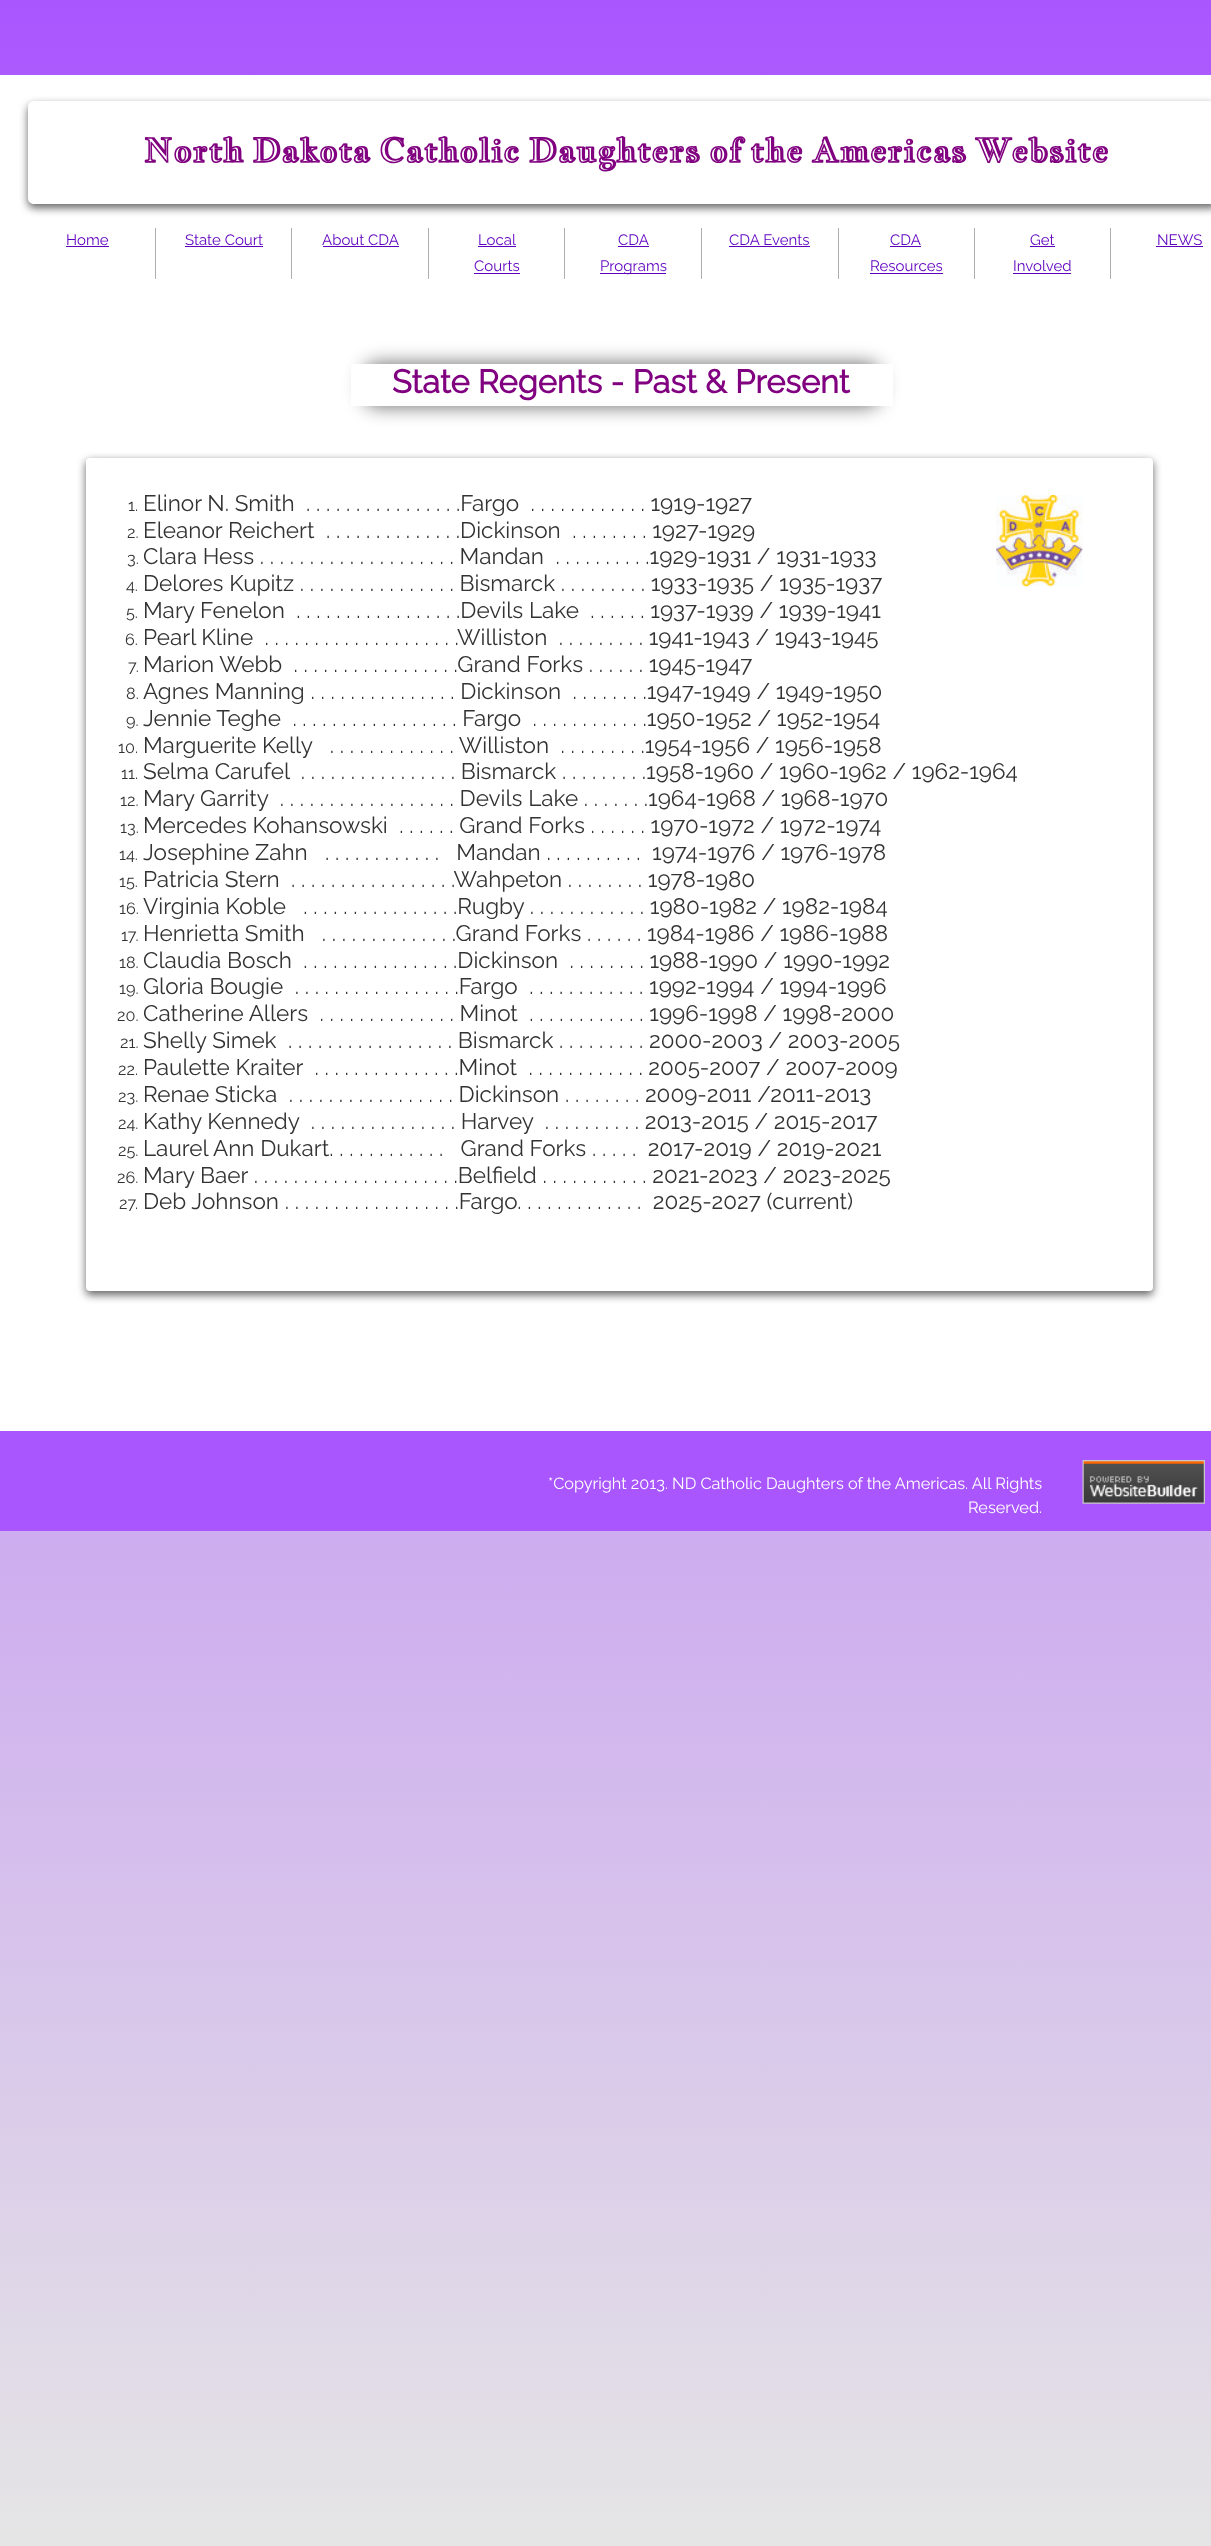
<svg xmlns="http://www.w3.org/2000/svg" width="1211" height="2546" viewBox="0 0 1211 2546">
  <defs>
    <linearGradient id="g1" gradientUnits="userSpaceOnUse" x1="606" y1="0" x2="606" y2="2546"><stop offset="0" stop-color="#aa56ff"/><stop offset="1" stop-color="#e5e5e5"/></linearGradient>
  </defs>
  <rect width="100%" height="100%" fill="#fff"/>
  <path d="M0 0h1211v2546H0z" fill="url(#g1)"/>
  <path d="M0 75h1211v1356H0z" fill="#fff"/>
  <rect x="28" y="105" width="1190" height="103" rx="6" fill="#323232bf" filter="blur(4.5px)"/>
  <path d="M34 101H1211V204H34C30.5 204 28 201.5 28 198V107C28 103.5 30.5 101 34 101Z" fill="#fff"/>
  <path d="M155 228h1v51H155z" fill="#aeaeae"/>
  <path d="M66 246h43v1H66z" fill="#5f00bf"/>
  <path d="M291 228h1v51H291z" fill="#aeaeae"/>
  <path d="M185 246h78v1H185z" fill="#5f00bf"/>
  <path d="M428 228h1v51H428z" fill="#aeaeae"/>
  <path d="M323 246h76v1H323z" fill="#5f00bf"/>
  <path d="M564 228h1v51H564z" fill="#aeaeae"/>
  <path d="M478 246h38v1H478z" fill="#5f00bf"/>
  <path d="M474 273h46v1H474z" fill="#5f00bf"/>
  <path d="M701 228h1v51H701z" fill="#aeaeae"/>
  <path d="M618 246h31v1H618z" fill="#5f00bf"/>
  <path d="M600 273h66v1H600z" fill="#5f00bf"/>
  <path d="M838 228h1v51H838z" fill="#aeaeae"/>
  <path d="M729 246h81v1H729z" fill="#5f00bf"/>
  <path d="M974 228h1v51H974z" fill="#aeaeae"/>
  <path d="M890 246h31v1H890z" fill="#5f00bf"/>
  <path d="M870 273h73v1H870z" fill="#5f00bf"/>
  <path d="M1110 228h1v51H1110z" fill="#aeaeae"/>
  <path d="M1030 246h25v1H1030z" fill="#5f00bf"/>
  <path d="M1013 273h58v1H1013z" fill="#5f00bf"/>
  <path d="M1156 246h47v1H1156z" fill="#5f00bf"/>
  <rect x="364" y="364" width="516" height="42" rx="13" fill="#00000099" filter="blur(9.5px)"/>
  <path d="M351 364h542v42H351z" fill="#fff"/>
  <rect x="86" y="461" width="1067" height="834" rx="4" fill="#323232bf" filter="blur(4.5px)"/>
  <rect x="86" y="458" width="1067" height="833" rx="4" fill="#fff"/>
  <image x="996" y="495" width="87" height="92" href="img/1.png"/>
  <path d="M0 1431h1211v100H0z" fill="#aa56ff"/>
  <image x="1082" y="1460" width="123" height="44" href="img/2.png"/>
  <text x="144" y="162" font-family="Jacques Francois Shadow" font-size="32.5" font-weight="bold" fill="#800080">North Dakota Catholic Daughters of the Americas Website</text>
  <g font-family="Raleway" font-size="15" font-weight="100" fill="#5f00bf">
    <text x="66" y="245">Home</text>
    <text x="185" y="245">State Court</text>
    <text x="322" y="245">About CDA</text>
    <text x="478" y="245">Local</text>
    <text x="474" y="271">Courts</text>
    <text x="618" y="245">CDA</text>
    <text x="600" y="271">Programs</text>
    <text x="729" y="245">CDA Events</text>
    <text x="890" y="245">CDA</text>
    <text x="870" y="271">Resources</text>
    <text x="1030" y="245">Get</text>
    <text x="1013" y="271">Involved</text>
    <text x="1157" y="245">NEWS</text>
  </g>
  <text x="392" y="393" font-family="Raleway" font-size="32.5" font-weight="bold" fill="#800080">State Regents - Past &amp; Present</text>
  <text x="128" y="511" font-family="Raleway" font-size="16.25" font-weight="100" fill="#333">1.</text>
  <text x="143" y="511" font-family="Raleway" font-size="22.5" font-weight="100" fill="#333" xml:space="preserve">Elinor N. Smith  . . . . . . . . . . . . . . . .Fargo  . . . . . . . . . . . . 1919-1927</text>
  <text x="127" y="538" font-family="Raleway" font-size="16.25" font-weight="100" fill="#333">2.</text>
  <text x="143" y="538" font-family="Raleway" font-size="22.5" font-weight="100" fill="#333" xml:space="preserve">Eleanor Reichert  . . . . . . . . . . . . . .Dickinson  . . . . . . . . 1927-1929</text>
  <text x="127" y="564" font-family="Raleway" font-size="16.25" font-weight="100" fill="#333">3.</text>
  <text x="143" y="564" font-family="Raleway" font-size="22.5" font-weight="100" fill="#333" xml:space="preserve">Clara Hess . . . . . . . . . . . . . . . . . . . . Mandan  . . . . . . . . . .1929-1931 / 1931-1933</text>
  <text x="126" y="591" font-family="Raleway" font-size="16.25" font-weight="100" fill="#333">4.</text>
  <text x="143" y="591" font-family="Raleway" font-size="22.5" font-weight="100" fill="#333">Delores Kupitz . . . . . . . . . . . . . . . . Bismarck . . . . . . . . . 1933-1935 / 1935-1937</text>
  <text x="126" y="618" font-family="Raleway" font-size="16.25" font-weight="100" fill="#333">5.</text>
  <text x="143" y="618" font-family="Raleway" font-size="22.5" font-weight="100" fill="#333" xml:space="preserve">Mary Fenelon  . . . . . . . . . . . . . . . . .Devils Lake  . . . . . . 1937-1939 / 1939-1941</text>
  <text x="125" y="645" font-family="Raleway" font-size="16.25" font-weight="100" fill="#333">6.</text>
  <text x="143" y="645" font-family="Raleway" font-size="22.5" font-weight="100" fill="#333" xml:space="preserve">Pearl Kline  . . . . . . . . . . . . . . . . . . . .Williston  . . . . . . . . . 1941-1943 / 1943-1945</text>
  <text x="128" y="672" font-family="Raleway" font-size="16.25" font-weight="100" fill="#333">7.</text>
  <text x="143" y="672" font-family="Raleway" font-size="22.5" font-weight="100" fill="#333" xml:space="preserve">Marion Webb  . . . . . . . . . . . . . . . . .Grand Forks . . . . . . 1945-1947</text>
  <text x="126" y="699" font-family="Raleway" font-size="16.25" font-weight="100" fill="#333">8.</text>
  <text x="143" y="699" font-family="Raleway" font-size="22.5" font-weight="100" fill="#333" xml:space="preserve">Agnes Manning . . . . . . . . . . . . . . . Dickinson  . . . . . . . .1947-1949 / 1949-1950</text>
  <text x="126" y="726" font-family="Raleway" font-size="16.25" font-weight="100" fill="#333">9.</text>
  <text x="143" y="726" font-family="Raleway" font-size="22.5" font-weight="100" fill="#333" xml:space="preserve">Jennie Teghe  . . . . . . . . . . . . . . . . . Fargo  . . . . . . . . . . . .1950-1952 / 1952-1954</text>
  <text x="118" y="753" font-family="Raleway" font-size="16.25" font-weight="100" fill="#333">10.</text>
  <text x="143" y="753" font-family="Raleway" font-size="22.5" font-weight="100" fill="#333" xml:space="preserve">Marguerite Kelly   . . . . . . . . . . . . . Williston  . . . . . . . . .1954-1956 / 1956-1958</text>
  <text x="121" y="779" font-family="Raleway" font-size="16.25" font-weight="100" fill="#333">11.</text>
  <text x="143" y="779" font-family="Raleway" font-size="22.5" font-weight="100" fill="#333" xml:space="preserve">Selma Carufel  . . . . . . . . . . . . . . . . Bismarck . . . . . . . . .1958-1960 / 1960-1962 / 1962-1964</text>
  <text x="120" y="806" font-family="Raleway" font-size="16.25" font-weight="100" fill="#333">12.</text>
  <text x="143" y="806" font-family="Raleway" font-size="22.5" font-weight="100" fill="#333" xml:space="preserve">Mary Garrity  . . . . . . . . . . . . . . . . . . Devils Lake . . . . . . .1964-1968 / 1968-1970</text>
  <text x="120" y="833" font-family="Raleway" font-size="16.25" font-weight="100" fill="#333">13.</text>
  <text x="143" y="833" font-family="Raleway" font-size="22.5" font-weight="100" fill="#333" xml:space="preserve">Mercedes Kohansowski  . . . . . . Grand Forks . . . . . . 1970-1972 / 1972-1974</text>
  <text x="119" y="860" font-family="Raleway" font-size="16.25" font-weight="100" fill="#333">14.</text>
  <text x="143" y="860" font-family="Raleway" font-size="22.5" font-weight="100" fill="#333" xml:space="preserve">Josephine Zahn   . . . . . . . . . . . .   Mandan . . . . . . . . . .  1974-1976 / 1976-1978</text>
  <text x="119" y="887" font-family="Raleway" font-size="16.25" font-weight="100" fill="#333">15.</text>
  <text x="143" y="887" font-family="Raleway" font-size="22.5" font-weight="100" fill="#333" xml:space="preserve">Patricia Stern  . . . . . . . . . . . . . . . . .Wahpeton . . . . . . . . 1978-1980</text>
  <text x="119" y="914" font-family="Raleway" font-size="16.25" font-weight="100" fill="#333">16.</text>
  <text x="143" y="914" font-family="Raleway" font-size="22.5" font-weight="100" fill="#333" xml:space="preserve">Virginia Koble   . . . . . . . . . . . . . . . .Rugby . . . . . . . . . . . . 1980-1982 / 1982-1984</text>
  <text x="121" y="941" font-family="Raleway" font-size="16.25" font-weight="100" fill="#333">17.</text>
  <text x="143" y="941" font-family="Raleway" font-size="22.5" font-weight="100" fill="#333" xml:space="preserve">Henrietta Smith   . . . . . . . . . . . . . .Grand Forks . . . . . . 1984-1986 / 1986-1988</text>
  <text x="119" y="968" font-family="Raleway" font-size="16.25" font-weight="100" fill="#333">18.</text>
  <text x="143" y="968" font-family="Raleway" font-size="22.5" font-weight="100" fill="#333" xml:space="preserve">Claudia Bosch  . . . . . . . . . . . . . . . .Dickinson  . . . . . . . . 1988-1990 / 1990-1992</text>
  <text x="119" y="994" font-family="Raleway" font-size="16.25" font-weight="100" fill="#333">19.</text>
  <text x="143" y="994" font-family="Raleway" font-size="22.5" font-weight="100" fill="#333" xml:space="preserve">Gloria Bougie  . . . . . . . . . . . . . . . . .Fargo  . . . . . . . . . . . . 1992-1994 / 1994-1996</text>
  <text x="117" y="1021" font-family="Raleway" font-size="16.25" font-weight="100" fill="#333">20.</text>
  <text x="143" y="1021" font-family="Raleway" font-size="22.5" font-weight="100" fill="#333" xml:space="preserve">Catherine Allers  . . . . . . . . . . . . . . Minot  . . . . . . . . . . . . 1996-1998 / 1998-2000</text>
  <text x="120" y="1048" font-family="Raleway" font-size="16.25" font-weight="100" fill="#333">21.</text>
  <text x="143" y="1048" font-family="Raleway" font-size="22.5" font-weight="100" fill="#333" xml:space="preserve">Shelly Simek  . . . . . . . . . . . . . . . . . Bismarck . . . . . . . . . 2000-2003 / 2003-2005</text>
  <text x="118" y="1075" font-family="Raleway" font-size="16.25" font-weight="100" fill="#333">22.</text>
  <text x="143" y="1075" font-family="Raleway" font-size="22.5" font-weight="100" fill="#333" xml:space="preserve">Paulette Kraiter  . . . . . . . . . . . . . . .Minot  . . . . . . . . . . . . 2005-2007 / 2007-2009</text>
  <text x="118" y="1102" font-family="Raleway" font-size="16.25" font-weight="100" fill="#333">23.</text>
  <text x="143" y="1102" font-family="Raleway" font-size="22.5" font-weight="100" fill="#333" xml:space="preserve">Renae Sticka  . . . . . . . . . . . . . . . . . Dickinson . . . . . . . . 2009-2011 /2011-2013</text>
  <text x="118" y="1129" font-family="Raleway" font-size="16.25" font-weight="100" fill="#333">24.</text>
  <text x="143" y="1129" font-family="Raleway" font-size="22.5" font-weight="100" fill="#333" xml:space="preserve">Kathy Kennedy  . . . . . . . . . . . . . . . Harvey  . . . . . . . . . . 2013-2015 / 2015-2017</text>
  <text x="118" y="1156" font-family="Raleway" font-size="16.25" font-weight="100" fill="#333">25.</text>
  <text x="143" y="1156" font-family="Raleway" font-size="22.5" font-weight="100" fill="#333" xml:space="preserve">Laurel Ann Dukart. . . . . . . . . . . .   Grand Forks . . . . .  2017-2019 / 2019-2021</text>
  <text x="117" y="1183" font-family="Raleway" font-size="16.25" font-weight="100" fill="#333">26.</text>
  <text x="143" y="1183" font-family="Raleway" font-size="22.5" font-weight="100" fill="#333">Mary Baer . . . . . . . . . . . . . . . . . . . . .Belfield . . . . . . . . . . . 2021-2023 / 2023-2025</text>
  <text x="119" y="1209" font-family="Raleway" font-size="16.25" font-weight="100" fill="#333">27.</text>
  <text x="143" y="1209" font-family="Raleway" font-size="22.5" font-weight="100" fill="#333" xml:space="preserve">Deb Johnson . . . . . . . . . . . . . . . . . .Fargo. . . . . . . . . . . . .  2025-2027 (current)</text>
  <g font-family="Raleway" font-size="16.25" font-weight="100" fill="#fff">
    <text x="548" y="1489">*Copyright 2013. ND Catholic Daughters of the Americas. All Rights</text>
    <text x="968" y="1513">Reserved.</text>
  </g>
</svg>
